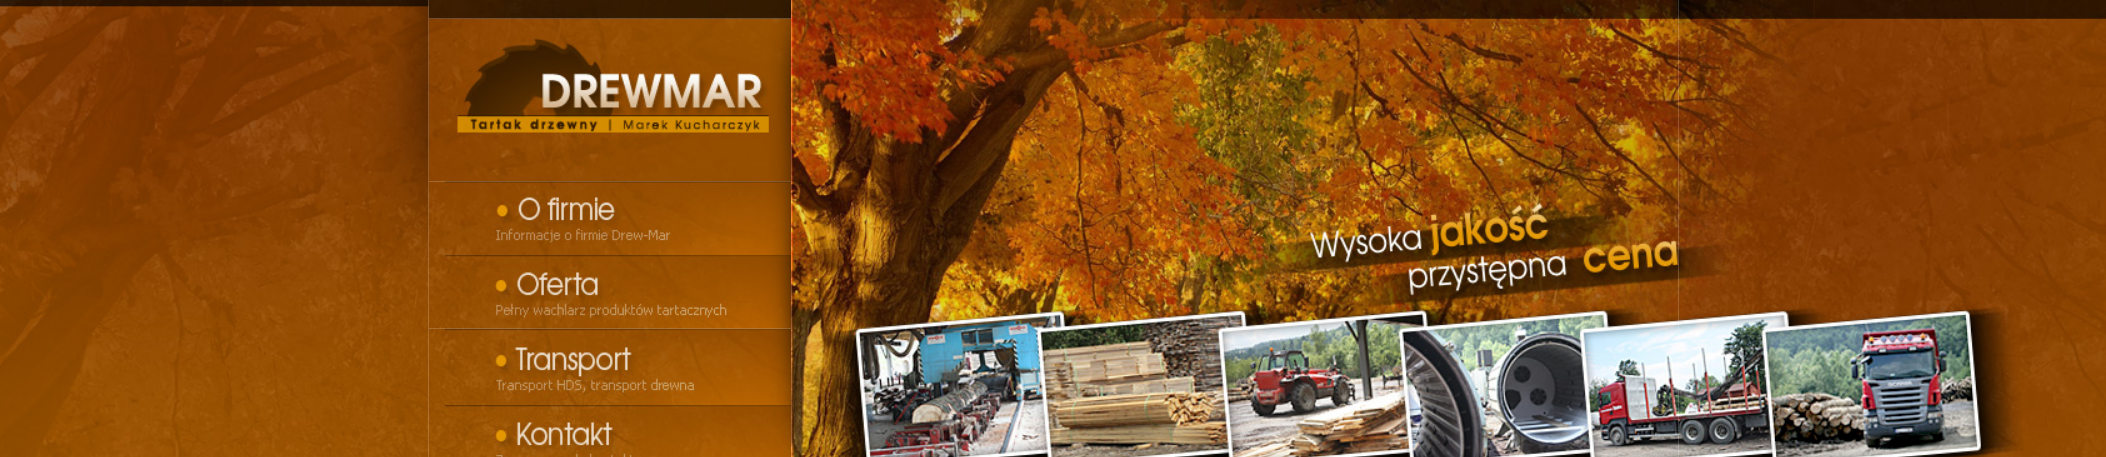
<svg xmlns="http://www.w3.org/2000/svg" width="2106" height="457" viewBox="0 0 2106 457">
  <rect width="100%" height="100%" fill="#fff"/>
  <image x="0" y="0" width="429" height="457" href="img/1.png"/>
  <image x="428" y="0" width="363" height="19" href="img/2.png"/>
  <image x="428" y="18" width="364" height="164" href="img/3.png"/>
  <image x="428" y="181" width="364" height="74" href="img/4.png"/>
  <image x="428" y="255" width="364" height="74" href="img/5.png"/>
  <image x="428" y="328" width="364" height="77" href="img/6.png"/>
  <image x="428" y="405" width="364" height="52" href="img/7.png"/>
  <image x="1678" y="0" width="428" height="457" href="img/9.png"/>
  <image x="791" y="0" width="888" height="457" href="img/8.png"/>
</svg>
